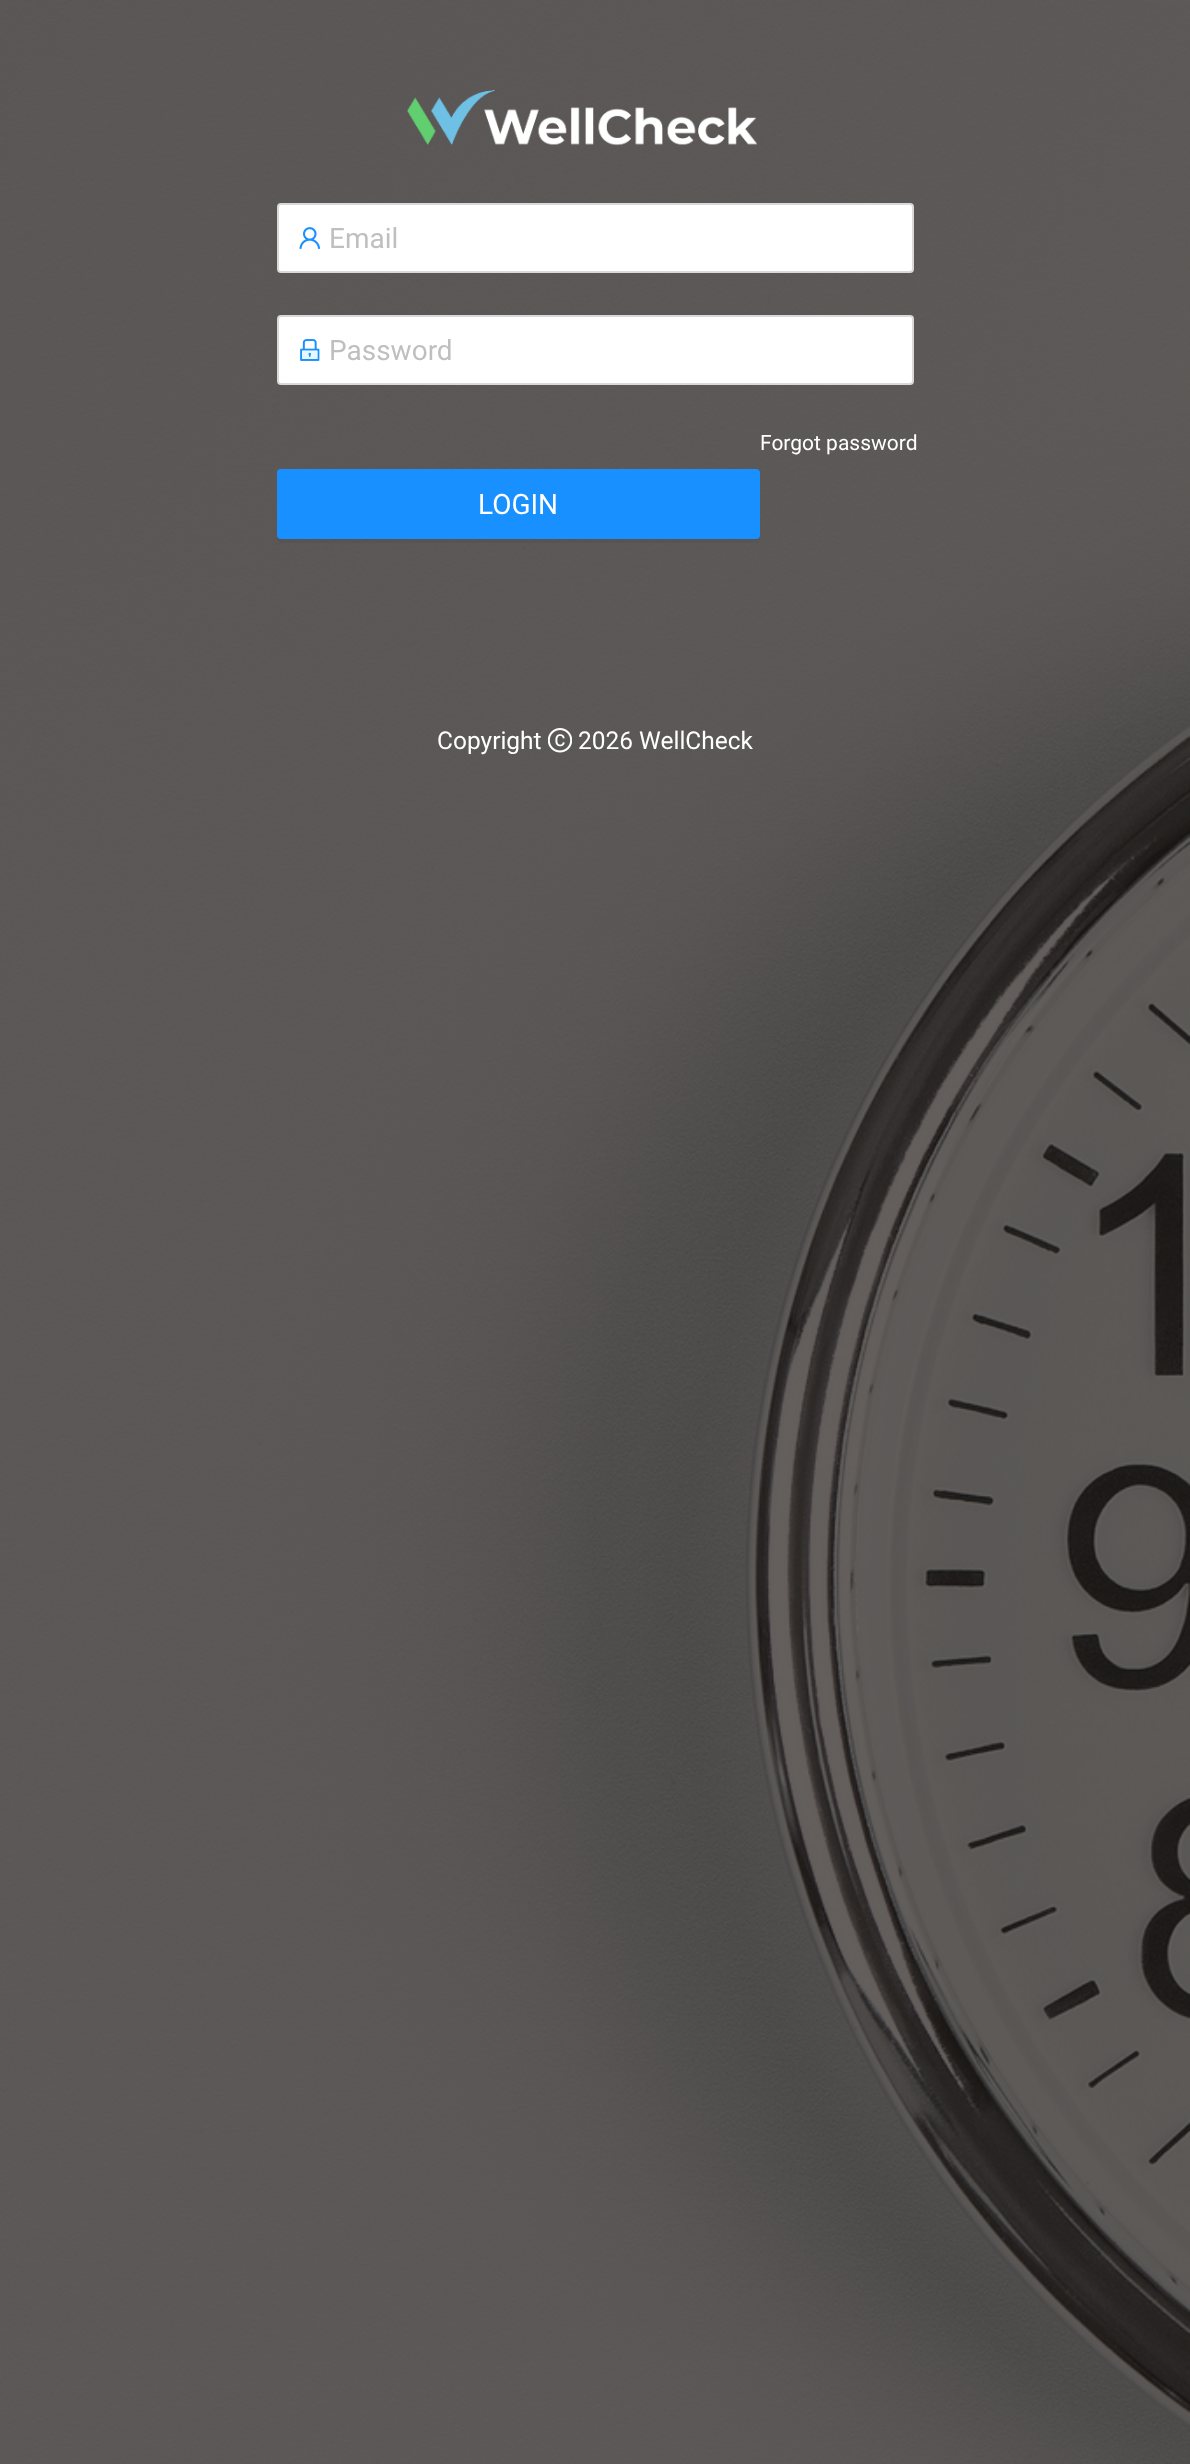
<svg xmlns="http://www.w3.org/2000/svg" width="1190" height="2464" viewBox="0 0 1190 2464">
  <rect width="100%" height="100%" fill="#fff"/>
  <image x="0" y="0" width="1190" height="2464" href="img/1.png"/>
  <image x="407" y="90" width="350" height="56" href="img/2.png"/>
  <rect x="278" y="204" width="635" height="68" rx="3" fill="#fff" stroke="#d9d9d9" stroke-width="2"/>
  <image x="299" y="227" width="21" height="22" href="img/3.png"/>
  <rect x="278" y="316" width="635" height="68" rx="3" fill="#fff" stroke="#d9d9d9" stroke-width="2"/>
  <image x="300" y="339" width="20" height="22" href="img/4.png"/>
  <path d="M277 537V539C277 541 279 543 281 543H756C758 543 760 541 760 539V477V475V536C760 537 758 539 756 539H280C279 539 278 538 277 537Z" fill="#0000000a"/>
  <rect x="278" y="470" width="481" height="68" rx="3" fill="#1890ff" stroke="#1890ff" stroke-width="2"/>
  <image x="548" y="728" width="24" height="25" href="img/5.png"/>
  <g font-family="Roboto" font-size="28" fill="#bfbfbf">
    <text x="329" y="248">Email</text>
    <text x="329" y="360">Password</text>
  </g>
  <text x="760" y="450" font-family="Roboto" font-size="21" fill="#fff">Forgot password</text>
  <text x="478" y="514" font-family="Roboto" font-size="28" fill="#fff">LOGIN</text>
  <g font-family="Roboto" font-size="24.5" fill="#fff">
    <text x="437" y="749">Copyright</text>
    <text x="578" y="749">2026 WellCheck</text>
  </g>
</svg>
